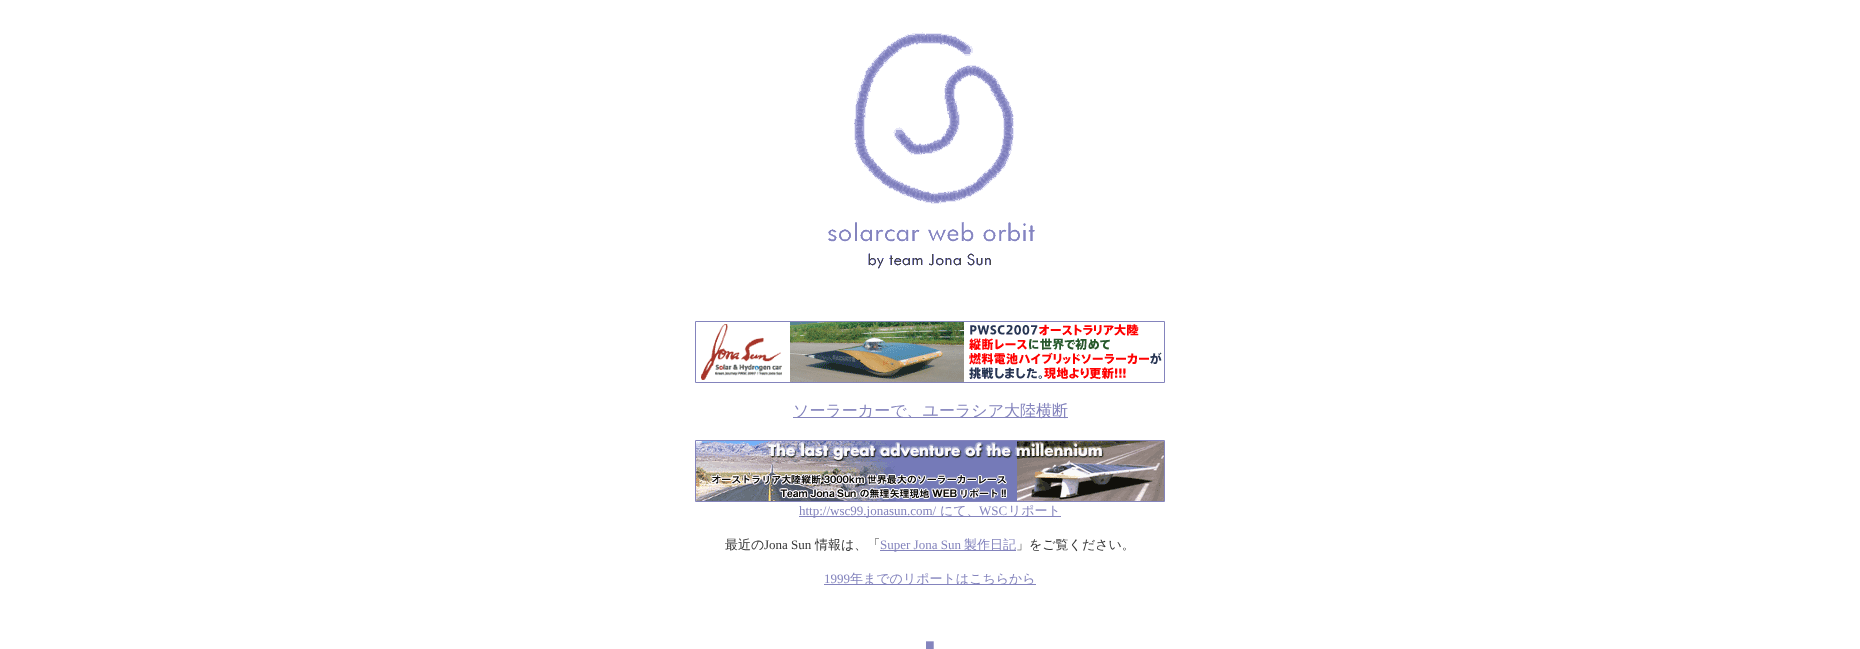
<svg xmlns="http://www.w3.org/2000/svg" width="1860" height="649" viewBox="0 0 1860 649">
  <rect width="100%" height="100%" fill="#fff"/>
  <image x="828" y="32" width="207" height="237" href="img/1.png"/>
  <path d="M695.5 321.5h469v61H695.5z" fill="none" stroke="#8484bd"/>
  <image x="701" y="322" width="461" height="60" href="img/2.png"/>
  <path d="M793 417h275v1H793z" fill="#8484bd"/>
  <path d="M695.5 440.5h469v61H695.5z" fill="none" stroke="#8484bd"/>
  <image x="696" y="441" width="468" height="60" href="img/3.png"/>
  <path d="M799 516h262v1H799z" fill="#8484bd"/>
  <path d="M880 550h136v1H880z" fill="#8484bd"/>
  <path d="M824 584h212v1H824z" fill="#8484bd"/>
  <text x="793" y="416" font-family="WenQuanYi Zen Hei" font-size="16" font-weight="500" fill="#8484bd">ソーラーカーで、ユーラシア大陸横断</text>
  <text x="799" y="515" font-family="Liberation Serif" font-size="13" fill="#8484bd">http://wsc99.jonasun.com/</text>
  <text x="940" y="515" font-family="WenQuanYi Zen Hei" font-size="13" font-weight="500" fill="#8484bd">にて、</text>
  <text x="979" y="515" font-family="Liberation Serif" font-size="13" fill="#8484bd">WSC</text>
  <text x="1008" y="515" font-family="WenQuanYi Zen Hei" font-size="13" font-weight="500" fill="#8484bd">リポート</text>
  <text x="725" y="549" font-family="WenQuanYi Zen Hei" font-size="13" font-weight="500" fill="#333">最近の</text>
  <text x="764" y="549" font-family="Liberation Serif" font-size="13" fill="#333">Jona Sun</text>
  <text x="815" y="549" font-family="WenQuanYi Zen Hei" font-size="13" font-weight="500" fill="#333">情報は、「</text>
  <text x="880" y="549" font-family="Liberation Serif" font-size="13" fill="#8484bd">Super Jona Sun</text>
  <text x="964" y="549" font-family="WenQuanYi Zen Hei" font-size="13" font-weight="500" fill="#8484bd">製作日記</text>
  <text x="1016" y="549" font-family="WenQuanYi Zen Hei" font-size="13" font-weight="500" fill="#333">」をご覧ください。</text>
  <text x="824" y="583" font-family="Liberation Serif" font-size="13" fill="#8484bd">1999</text>
  <text x="850" y="583" font-family="WenQuanYi Zen Hei" font-size="13" font-weight="500" fill="#8484bd">年までのリポートはこちらから</text>
  <text x="925" y="650" font-family="Liberation Serif" font-size="16" fill="#8484bd">■</text>
</svg>
